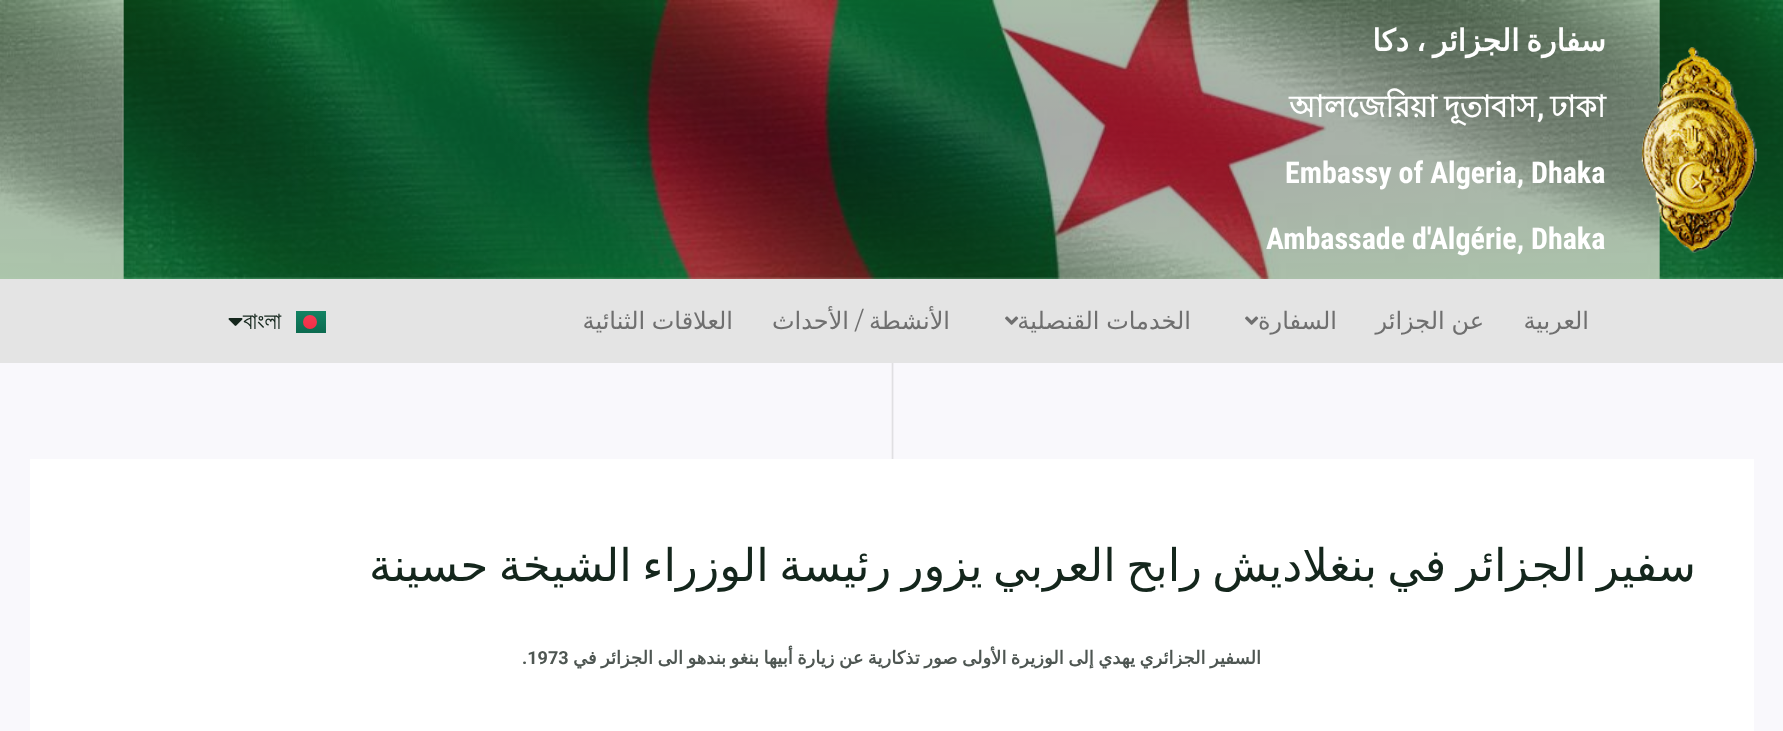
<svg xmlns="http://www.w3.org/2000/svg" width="1783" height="731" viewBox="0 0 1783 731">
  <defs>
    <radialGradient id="g1" gradientUnits="userSpaceOnUse" cx="0" cy="0" r="1" gradientTransform="matrix(1261 0 0 197 892 140)"><stop offset="0" stop-color="#0e0d0d"/><stop offset="1" stop-color="#1a6219"/></radialGradient>
    <linearGradient id="g2" gradientUnits="userSpaceOnUse" x1="311" y1="311" x2="311" y2="333"><stop offset="0" stop-color="#128363"/><stop offset="1" stop-color="#0c6a4f"/></linearGradient>
    <linearGradient id="g3" gradientUnits="userSpaceOnUse" x1="310" y1="315" x2="310" y2="329"><stop offset="0" stop-color="#f23c53"/><stop offset="1" stop-color="#f22e46"/></linearGradient>
  </defs>
  <rect width="100%" height="100%" fill="#fff"/>
  <image x="0" y="363" width="1783" height="368" href="img/1.png"/>
  <path d="M0 0h1783v279H0z" fill="url(#g1)"/>
  <image x="0" y="0" width="1783" height="279" href="img/2.png"/>
  <image x="1641" y="47" width="116" height="206" href="img/3.png"/>
  <path d="M0 279h1783v84H0z" fill="#e4e4e4"/>
  <image x="1245" y="316" width="14" height="9" href="img/4.png"/>
  <image x="1005" y="316" width="14" height="9" href="img/4.png"/>
  <path d="M296 311h30v22H296z" fill="url(#g2)"/>
  <circle cx="310" cy="322" r="7" fill="url(#g3)"/>
  <path d="M30 459h1724v272H30z" fill="#fff"/>
  <text x="1606" y="51" word-spacing="-2.5" font-family="DejaVu Sans" font-size="30" font-weight="bold" direction="rtl" fill="#fff">سفارة الجزائر ، دكا</text>
  <g font-family="Lohit Bengali" font-size="30" font-weight="bold" fill="#fff">
    <text x="1550" y="117">ঢাকা</text>
    <text x="1289" y="117" word-spacing="-1">আলজেরিয়া দূতাবাস</text>
  </g>
  <g font-family="Roboto Condensed" font-size="30" font-weight="bold" fill="#fff">
    <text x="1537" y="117">,</text>
    <text x="1285" y="183">Embassy of Algeria, Dhaka</text>
    <text x="1266" y="249">Ambassade d'Algérie, Dhaka</text>
  </g>
  <g font-family="DejaVu Sans" font-size="24" direction="rtl" fill="#6f6f6f">
    <text x="1589" y="329">العربية</text>
    <text x="1484" y="329" word-spacing="-1">عن الجزائر</text>
    <text x="1337" y="329">السفارة</text>
    <text x="1191" y="329" word-spacing="-1">الخدمات القنصلية</text>
    <text x="950" y="329">الأنشطة</text>
  </g>
  <text x="863" y="329" font-family="Montserrat Alternates" font-size="24" direction="rtl" fill="#6f6f6f">/</text>
  <g font-family="DejaVu Sans" font-size="24" direction="rtl" fill="#6f6f6f">
    <text x="849" y="329">الأحداث</text>
    <text x="733" y="329" word-spacing="-1">العلاقات الثنائية</text>
  </g>
  <text x="243" y="329" font-family="FreeSans" font-size="24" fill="#14261c">বাংলা</text>
  <image x="228" y="318" width="15" height="8" href="img/5.png"/>
  <text x="1696" y="581" word-spacing="-3.9" font-family="DejaVu Sans" font-size="45" direction="rtl" fill="#14261c">سفير الجزائر في بنغلاديش رابح العربي يزور رئيسة الوزراء الشيخة حسينة</text>
  <text x="1261" y="664" word-spacing="-1.25" font-family="DejaVu Sans" font-size="18" font-weight="bold" direction="rtl" fill="#4e5652">السفير الجزائري يهدي إلى الوزيرة الأولى صور تذكارية عن زيارة أبيها بنغو بندهو الى الجزائر في</text>
  <text x="522" y="664" font-family="Roboto" font-size="18" font-weight="bold" fill="#4e5652">.1973</text>
</svg>
